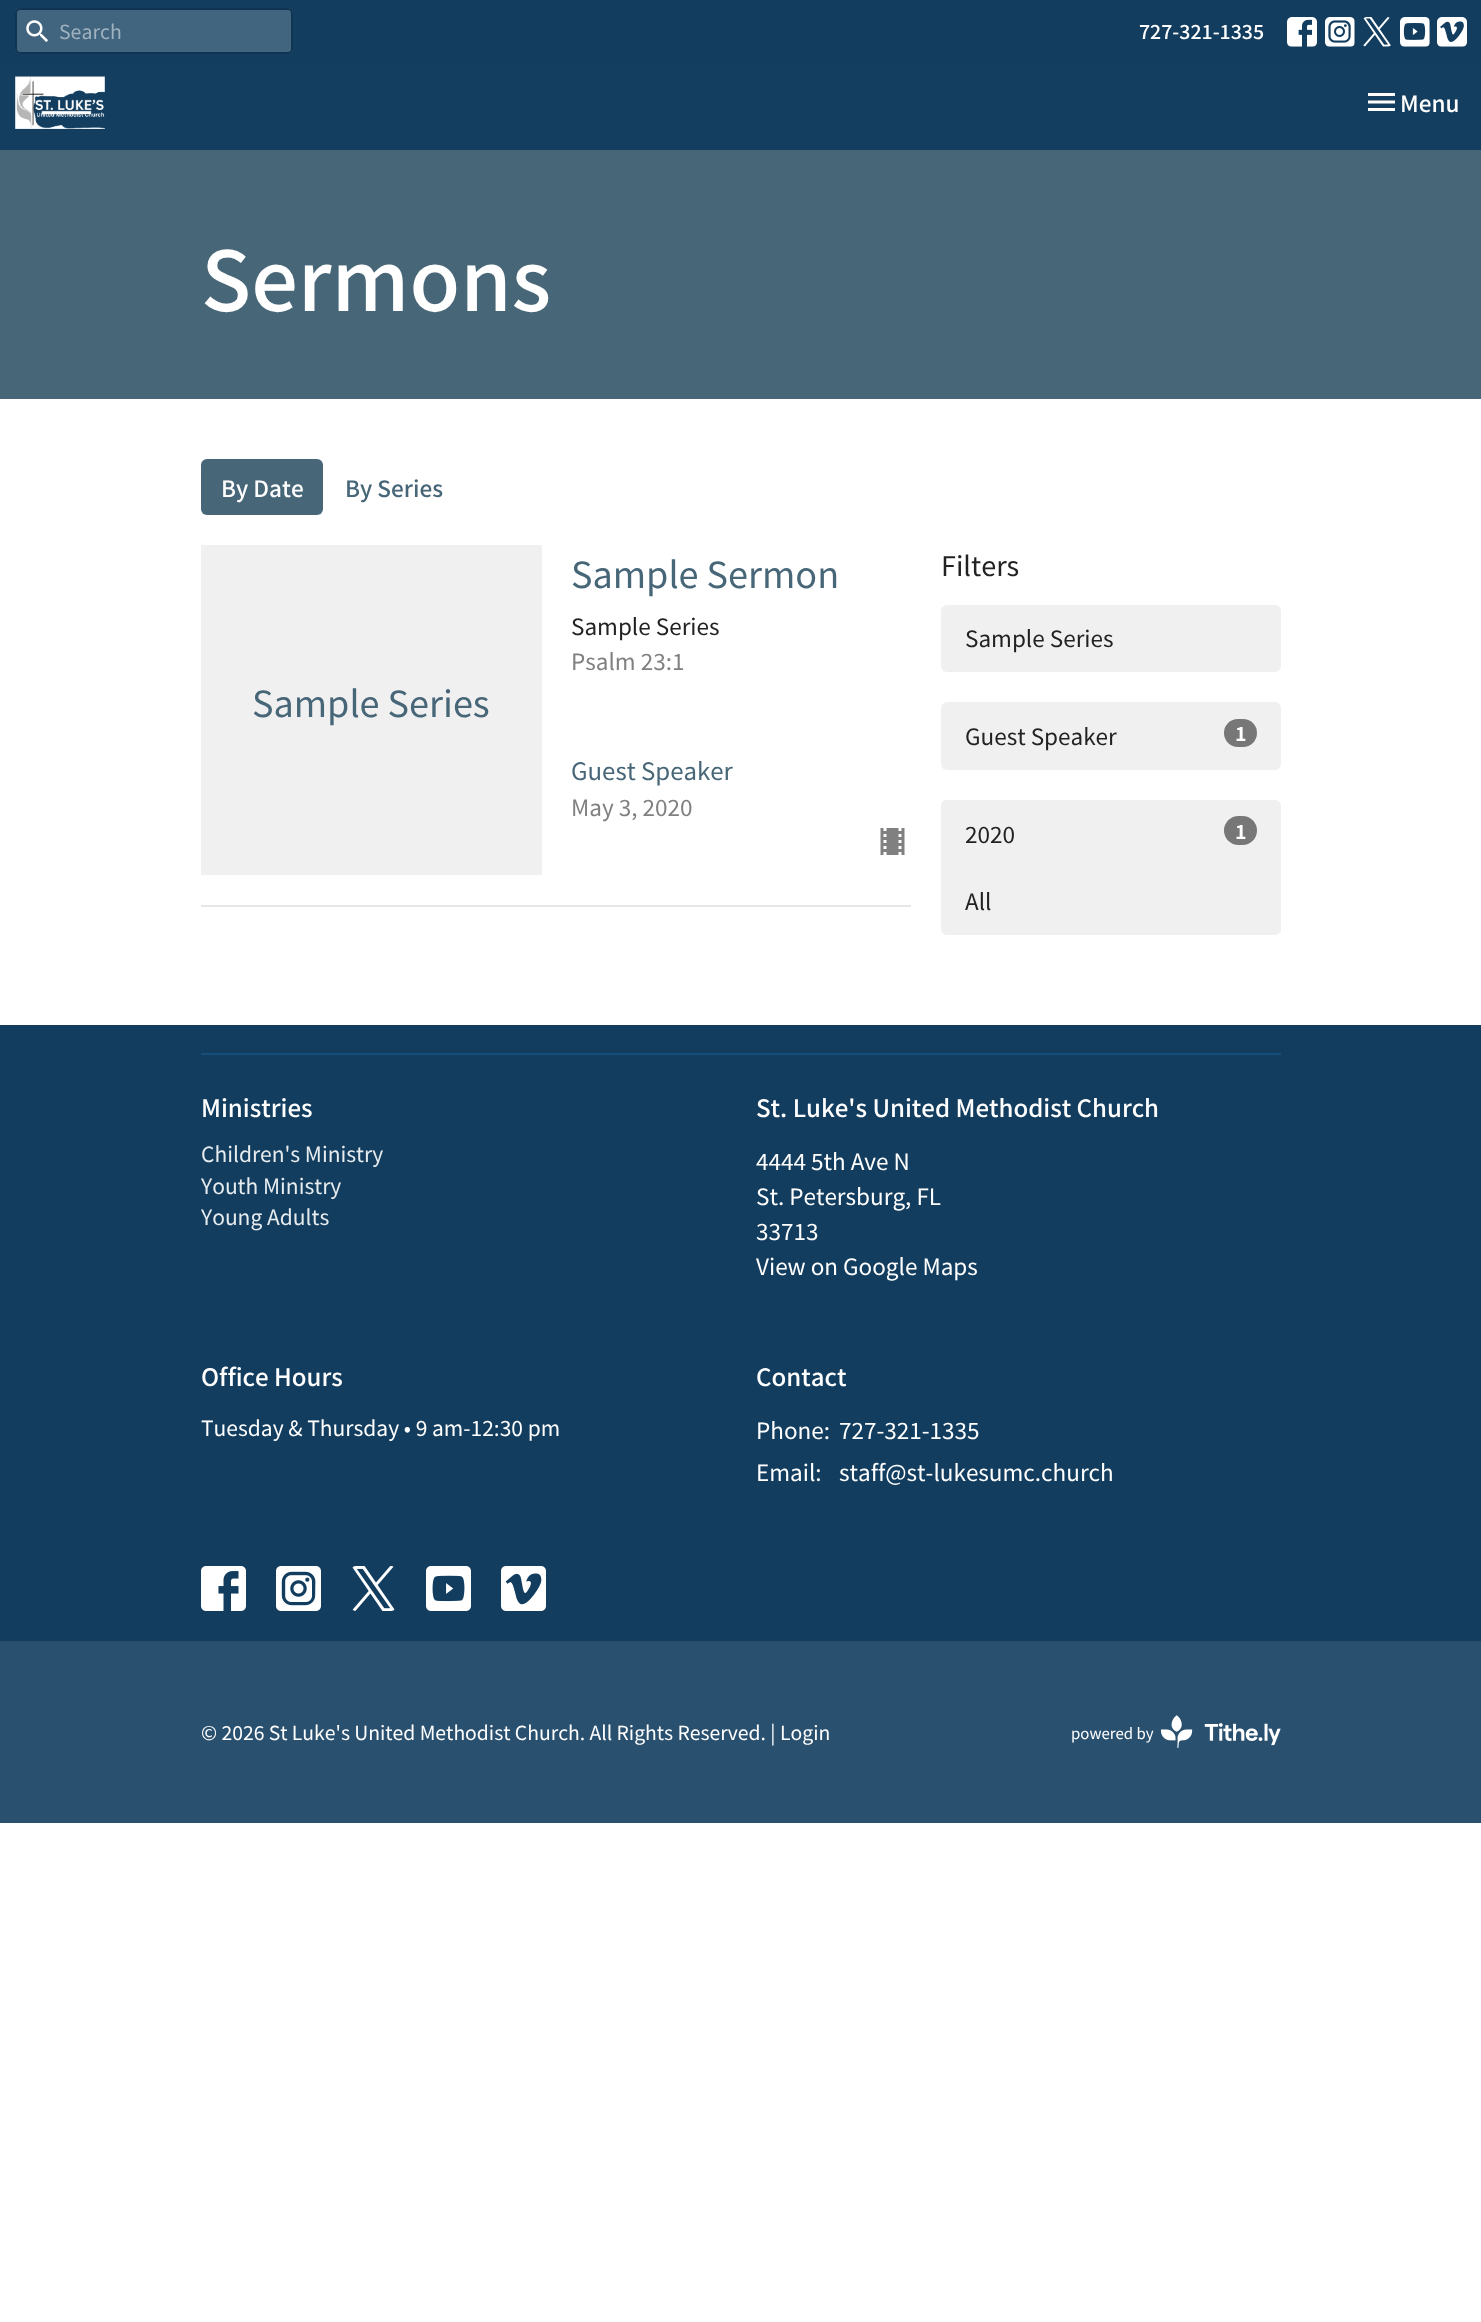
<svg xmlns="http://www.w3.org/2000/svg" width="1481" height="2322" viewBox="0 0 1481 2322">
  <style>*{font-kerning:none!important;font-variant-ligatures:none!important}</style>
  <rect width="100%" height="100%" fill="#fff"/>
  <path d="M0 0h1481v62H0z" fill="#123d5f"/>
  <rect x="15" y="8" width="278" height="46" rx="5" fill="#41647f"/>
  <path d="M20 10H288C290 10 291 12 291 14V12C291 10 290 9 288 9H20C19 9 17 10 17 11Z" fill="#3c5d75"/>
  <rect x="16" y="9" width="276" height="44" rx="4" fill="none" stroke="#103552" stroke-width="2"/>
  <image x="26" y="20" width="22" height="22" href="img/1.png"/>
  <image x="1287" y="17" width="30" height="30" href="img/2.png"/>
  <image x="1325" y="17" width="30" height="30" href="img/3.png"/>
  <image x="1363" y="17" width="28" height="30" href="img/4.png"/>
  <image x="1400" y="17" width="30" height="30" href="img/5.png"/>
  <image x="1437" y="17" width="30" height="30" href="img/6.png"/>
  <path d="M0 62h1481v88H0z" fill="#133e60"/>
  <image x="15" y="76" width="90" height="53" href="img/7.png"/>
  <image x="1368" y="93" width="27" height="18" href="img/8.png"/>
  <path d="M0 150h1481v249H0z" fill="#476678"/>
  <rect x="201" y="459" width="122" height="56" rx="6" fill="#476678"/>
  <path d="M201 905h710v2H201z" fill="#e6e6e6"/>
  <path d="M201 545h341v330H201z" fill="#f0f0f0"/>
  <image x="880" y="828" width="25" height="27" href="img/9.png"/>
  <rect x="941" y="605" width="340" height="67" rx="6" fill="#f0f0f0"/>
  <rect x="941" y="702" width="340" height="68" rx="6" fill="#f0f0f0"/>
  <rect x="1224" y="719" width="33" height="28" rx="14" fill="#777"/>
  <path d="M947 800H1275C1278.5 800 1281 802.5 1281 806V867H941V806C941 802.5 943.5 800 947 800Z" fill="#f0f0f0"/>
  <rect x="1224" y="816" width="33" height="29" rx="14.5" fill="#777"/>
  <path d="M941 866H1281V929C1281 932.5 1278.5 935 1275 935H947C943.5 935 941 932.5 941 929Z" fill="#f0f0f0"/>
  <path d="M0 1025h1481v616H0z" fill="#123d5f"/>
  <path d="M201 1053h1080v2H201z" fill="#174e79"/>
  <image x="201" y="1566" width="45" height="45" href="img/10.png"/>
  <image x="276" y="1566" width="45" height="45" href="img/11.png"/>
  <image x="352" y="1566" width="43" height="45" href="img/12.png"/>
  <image x="426" y="1566" width="45" height="45" href="img/13.png"/>
  <image x="501" y="1566" width="45" height="45" href="img/14.png"/>
  <path d="M0 1641h1481v182H0z" fill="#2a506f"/>
  <image x="1161" y="1715" width="120" height="33" href="img/15.png"/>
  <text x="59" y="39" font-family="Noto Sans JP" font-size="19.5" fill="#a0b2bf">Search</text>
  <text x="1139" y="39" font-family="Noto Sans KR" font-size="19.5" font-weight="500" fill="#fff">727-321-1335</text>
  <text x="1400" y="112" font-family="Noto Sans KR" font-size="22.5" font-weight="500" fill="#fff">Menu</text>
  <text x="201" y="311" font-family="Noto Sans KR" font-size="82.5" font-weight="500" fill="#fff">Sermons</text>
  <text x="221" y="497" font-family="Noto Sans JP" font-size="22.5" font-weight="500" fill="#fff">By Date</text>
  <text x="345" y="497" font-family="Noto Sans JP" font-size="22.5" font-weight="500" fill="#476678">By Series</text>
  <g font-family="Noto Sans KR" font-size="36" fill="#476678">
    <text x="252" y="717">Sample Series</text>
    <text x="571" y="588">Sample Sermon</text>
  </g>
  <text x="571" y="635" font-family="Noto Sans JP" font-size="22.5" fill="#222">Sample Series</text>
  <text x="571" y="670" font-family="Noto Sans JP" font-size="22.5" fill="#808080">Psalm 23:1</text>
  <text x="571" y="780" font-family="Noto Sans KR" font-size="24" fill="#476678">Guest Speaker</text>
  <text x="571" y="816" font-family="Noto Sans JP" font-size="22.5" fill="#808080">May 3, 2020</text>
  <text x="941" y="576" font-family="Noto Sans KR" font-size="27" fill="#222">Filters</text>
  <g font-family="Noto Sans JP" font-size="22.5" fill="#222">
    <text x="965" y="647">Sample Series</text>
    <text x="965" y="745">Guest Speaker</text>
  </g>
  <text x="1235" y="741" font-family="Noto Sans JP" font-size="19.5" font-weight="bold" fill="#fff">1</text>
  <text x="965" y="843" font-family="Noto Sans JP" font-size="22.5" fill="#222">2020</text>
  <text x="1235" y="839" font-family="Noto Sans JP" font-size="19.5" font-weight="bold" fill="#fff">1</text>
  <text x="965" y="910" font-family="Noto Sans JP" font-size="22.5" fill="#222">All</text>
  <text x="201" y="1117" font-family="Noto Sans KR" font-size="24" font-weight="500" fill="#fff">Ministries</text>
  <g font-family="Noto Sans JP" font-size="21" fill="#e7ecef">
    <text x="201" y="1162">Children's Ministry</text>
    <text x="201" y="1194">Youth Ministry</text>
    <text x="201" y="1225">Young Adults</text>
  </g>
  <text x="756" y="1117" font-family="Noto Sans KR" font-size="24" font-weight="500" fill="#fff">St. Luke's United Methodist Church</text>
  <g font-family="Noto Sans JP" font-size="22.5" fill="#fff">
    <text x="756" y="1170">4444 5th Ave N</text>
    <text x="756" y="1205">St. Petersburg, FL</text>
    <text x="756" y="1240">33713</text>
    <text x="756" y="1275">View on Google Maps</text>
  </g>
  <text x="201" y="1386" font-family="Noto Sans KR" font-size="24" font-weight="500" fill="#fff">Office Hours</text>
  <text x="201" y="1436" font-family="Noto Sans JP" font-size="21" fill="#fff">Tuesday &amp; Thursday • 9 am-12:30 pm</text>
  <text x="756" y="1386" font-family="Noto Sans KR" font-size="24" font-weight="500" fill="#fff">Contact</text>
  <g font-family="Noto Sans JP" font-size="22.5" fill="#fff">
    <text x="756" y="1439">Phone:</text>
    <text x="839" y="1439">727-321-1335</text>
    <text x="756" y="1481">Email:</text>
    <text x="839" y="1481">staff@st-lukesumc.church</text>
  </g>
  <g font-family="Noto Sans JP" font-size="19.35" fill="#fff">
    <text x="201" y="1740">© 2026 St Luke's United Methodist Church. All Rights Reserved. |</text>
    <text x="780" y="1740">Login</text>
  </g>
  <text x="1071" y="1739" font-family="Noto Sans JP" font-size="15" fill="#fff">powered by</text>
</svg>
